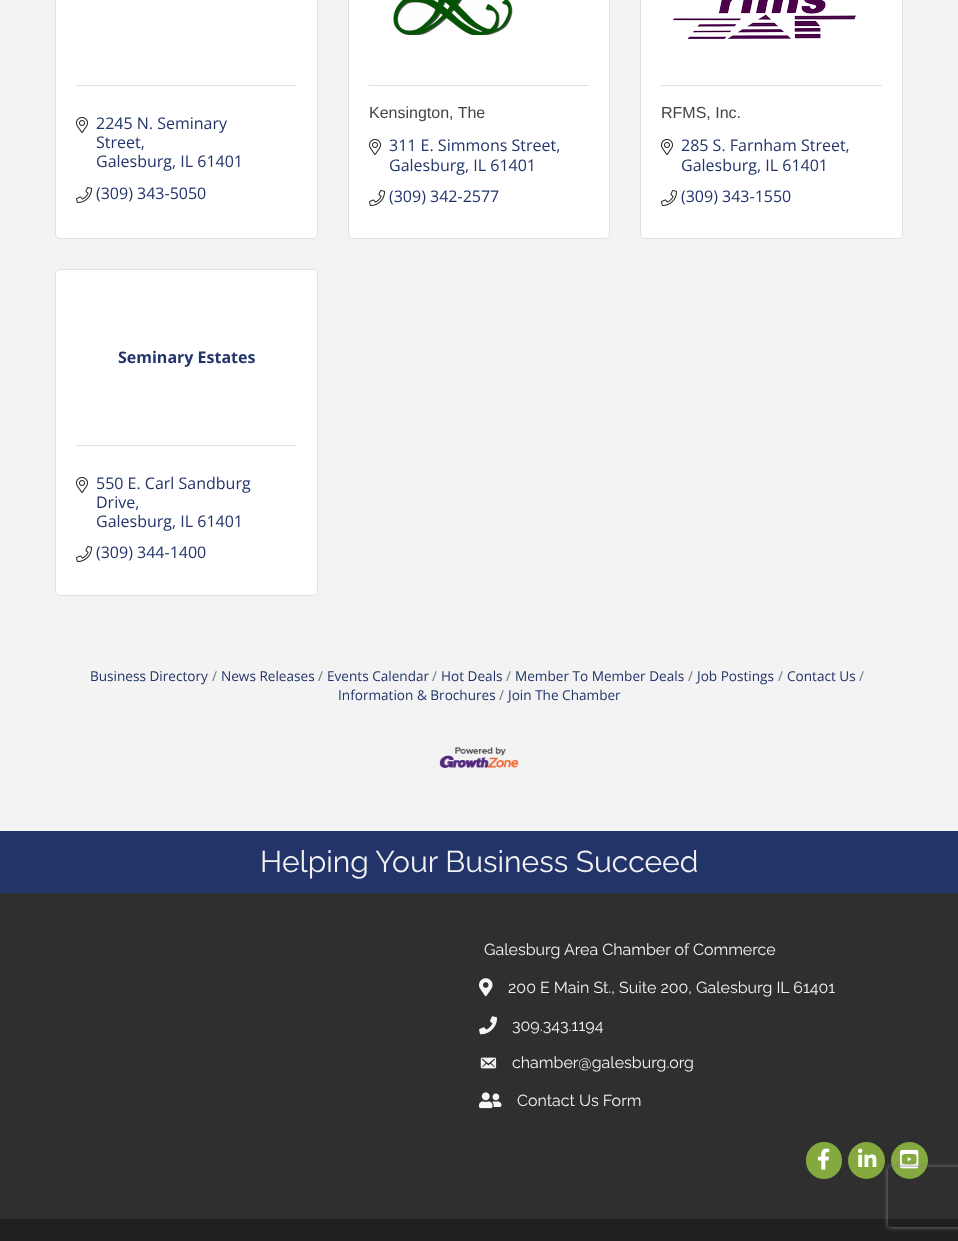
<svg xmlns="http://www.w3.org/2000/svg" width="958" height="1241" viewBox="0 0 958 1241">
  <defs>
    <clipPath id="clip1"><path d="M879 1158H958V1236H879ZM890 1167H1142C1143 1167 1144 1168 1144 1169V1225C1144 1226 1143 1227 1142 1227H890C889 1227 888 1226 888 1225V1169C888 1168 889 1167 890 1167Z" clip-rule="evenodd"/></clipPath>
  </defs>
  <rect width="100%" height="100%" fill="#f3f3f3"/>
  <rect x="55" y="-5" width="263" height="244" rx="5" fill="#fff"/>
  <rect x="55.5" y="-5.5" width="262" height="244" rx="4.5" fill="none" stroke="#0000001f"/>
  <path d="M76 85h221v1H76z" fill="#dfdfdf"/>
  <image x="76" y="117" width="12" height="16" href="img/1.png"/>
  <image x="76" y="187" width="16" height="16" href="img/2.png"/>
  <rect x="348" y="-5" width="262" height="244" rx="5" fill="#fff"/>
  <rect x="348.5" y="-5.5" width="261" height="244" rx="4.5" fill="none" stroke="#0000001f"/>
  <image x="393" y="0" width="120" height="35" href="img/3.png"/>
  <path d="M369 85h220v1H369z" fill="#dfdfdf"/>
  <image x="369" y="139" width="12" height="16" href="img/1.png"/>
  <image x="369" y="190" width="16" height="16" href="img/2.png"/>
  <rect x="640" y="-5" width="263" height="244" rx="5" fill="#fff"/>
  <rect x="640.5" y="-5.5" width="262" height="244" rx="4.5" fill="none" stroke="#0000001f"/>
  <image x="672" y="0" width="184" height="39" href="img/4.png"/>
  <path d="M661 85h221v1H661z" fill="#dfdfdf"/>
  <image x="661" y="139" width="12" height="16" href="img/1.png"/>
  <image x="661" y="190" width="16" height="16" href="img/2.png"/>
  <rect x="55" y="269" width="263" height="327" rx="5" fill="#fff"/>
  <rect x="55.5" y="269.5" width="262" height="326" rx="4.5" fill="none" stroke="#0000001f"/>
  <path d="M76 445h221v1H76z" fill="#dfdfdf"/>
  <image x="76" y="477" width="12" height="16" href="img/1.png"/>
  <image x="76" y="546" width="16" height="16" href="img/2.png"/>
  <image x="439" y="747" width="80" height="21" href="img/5.png"/>
  <path d="M0 831h958v62H0z" fill="#22346a"/>
  <path d="M0 893h958v326H0z" fill="#2f2f2f"/>
  <image x="479" y="978" width="14" height="19" href="img/6.png"/>
  <image x="479" y="1016" width="18" height="19" href="img/7.png"/>
  <image x="480" y="1057" width="17" height="12" href="img/8.png"/>
  <image x="479" y="1092" width="23" height="17" href="img/9.png"/>
  <rect x="806" y="1142" width="36" height="37" rx="18" fill="#84a93e"/>
  <image x="817" y="1148" width="13" height="22" href="img/10.png"/>
  <circle cx="866.5" cy="1160.5" r="18.5" fill="#84a93e"/>
  <image x="858" y="1148" width="19" height="19" href="img/11.png"/>
  <circle cx="909.5" cy="1160.5" r="18.5" fill="#84a93e"/>
  <image x="900" y="1149" width="19" height="20" href="img/12.png"/>
  <path d="M0 1219h958v22H0z" fill="#202020"/>
  <g clip-path="url(#clip1)">
    <rect x="888" y="1167" width="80" height="60" rx="2" fill="#808080" filter="blur(2.5px)"/>
  </g>
  <g font-family="Open Sans" font-size="16" fill="#22346a">
    <text x="96" y="129">2245 N. Seminary</text>
    <text x="96" y="148">Street,</text>
    <text x="96" y="167">Galesburg, IL 61401</text>
    <text x="96" y="199">(309) 343-5050</text>
  </g>
  <text x="369" y="118" font-family="Liberation Sans" font-size="16" fill="#444">Kensington, The</text>
  <g font-family="Open Sans" font-size="16" fill="#22346a">
    <text x="389" y="151">311 E. Simmons Street,</text>
    <text x="389" y="171">Galesburg, IL 61401</text>
    <text x="389" y="202">(309) 342-2577</text>
  </g>
  <text x="661" y="118" font-family="Liberation Sans" font-size="16" fill="#444">RFMS, Inc.</text>
  <g font-family="Open Sans" font-size="16" fill="#22346a">
    <text x="681" y="151">285 S. Farnham Street,</text>
    <text x="681" y="171">Galesburg, IL 61401</text>
    <text x="681" y="202">(309) 343-1550</text>
  </g>
  <text x="118" y="363" font-family="Open Sans" font-size="16" font-weight="bold" fill="#22346a">Seminary Estates</text>
  <g font-family="Open Sans" font-size="16" fill="#22346a">
    <text x="96" y="489">550 E. Carl Sandburg</text>
    <text x="96" y="508">Drive,</text>
    <text x="96" y="527">Galesburg, IL 61401</text>
    <text x="96" y="558">(309) 344-1400</text>
  </g>
  <text x="90" y="681" font-family="Open Sans" font-size="13.6" fill="#22346a">Business Directory</text>
  <text x="212" y="681" font-family="Open Sans" font-size="13.6" fill="#6c757d">/</text>
  <text x="221" y="681" font-family="Open Sans" font-size="13.6" fill="#22346a">News Releases</text>
  <text x="318" y="681" font-family="Open Sans" font-size="13.6" fill="#6c757d">/</text>
  <text x="327" y="681" font-family="Open Sans" font-size="13.6" fill="#22346a">Events Calendar</text>
  <text x="432" y="681" font-family="Open Sans" font-size="13.6" fill="#6c757d">/</text>
  <text x="441" y="681" font-family="Open Sans" font-size="13.6" fill="#22346a">Hot Deals</text>
  <text x="506" y="681" font-family="Open Sans" font-size="13.6" fill="#6c757d">/</text>
  <text x="515" y="681" font-family="Open Sans" font-size="13.6" fill="#22346a">Member To Member Deals</text>
  <text x="688" y="681" font-family="Open Sans" font-size="13.6" fill="#6c757d">/</text>
  <text x="697" y="681" font-family="Open Sans" font-size="13.6" fill="#22346a">Job Postings</text>
  <text x="859" y="681" font-family="Open Sans" font-size="13.6" fill="#6c757d">/</text>
  <text x="338" y="700" font-family="Open Sans" font-size="13.6" fill="#22346a">Information &amp; Brochures</text>
  <text x="778" y="681" font-family="Open Sans" font-size="13.6" fill="#6c757d">/</text>
  <text x="787" y="681" font-family="Open Sans" font-size="13.6" fill="#22346a">Contact Us</text>
  <text x="499" y="700" font-family="Open Sans" font-size="13.6" fill="#6c757d">/</text>
  <text x="508" y="700" font-family="Open Sans" font-size="13.6" fill="#22346a">Join The Chamber</text>
  <text x="260" y="872" font-family="Raleway" font-size="30" fill="#f3f3f3">Helping Your Business Succeed</text>
  <g font-family="Raleway" font-size="16" fill="#f3f3f3">
    <text x="484" y="955">Galesburg Area Chamber of Commerce</text>
    <text x="508" y="993">200 E Main St., Suite 200, Galesburg IL 61401</text>
    <text x="512" y="1031">309.343.1194</text>
    <text x="512" y="1068">chamber@galesburg.org</text>
    <text x="517" y="1106">Contact Us Form</text>
  </g>
</svg>
